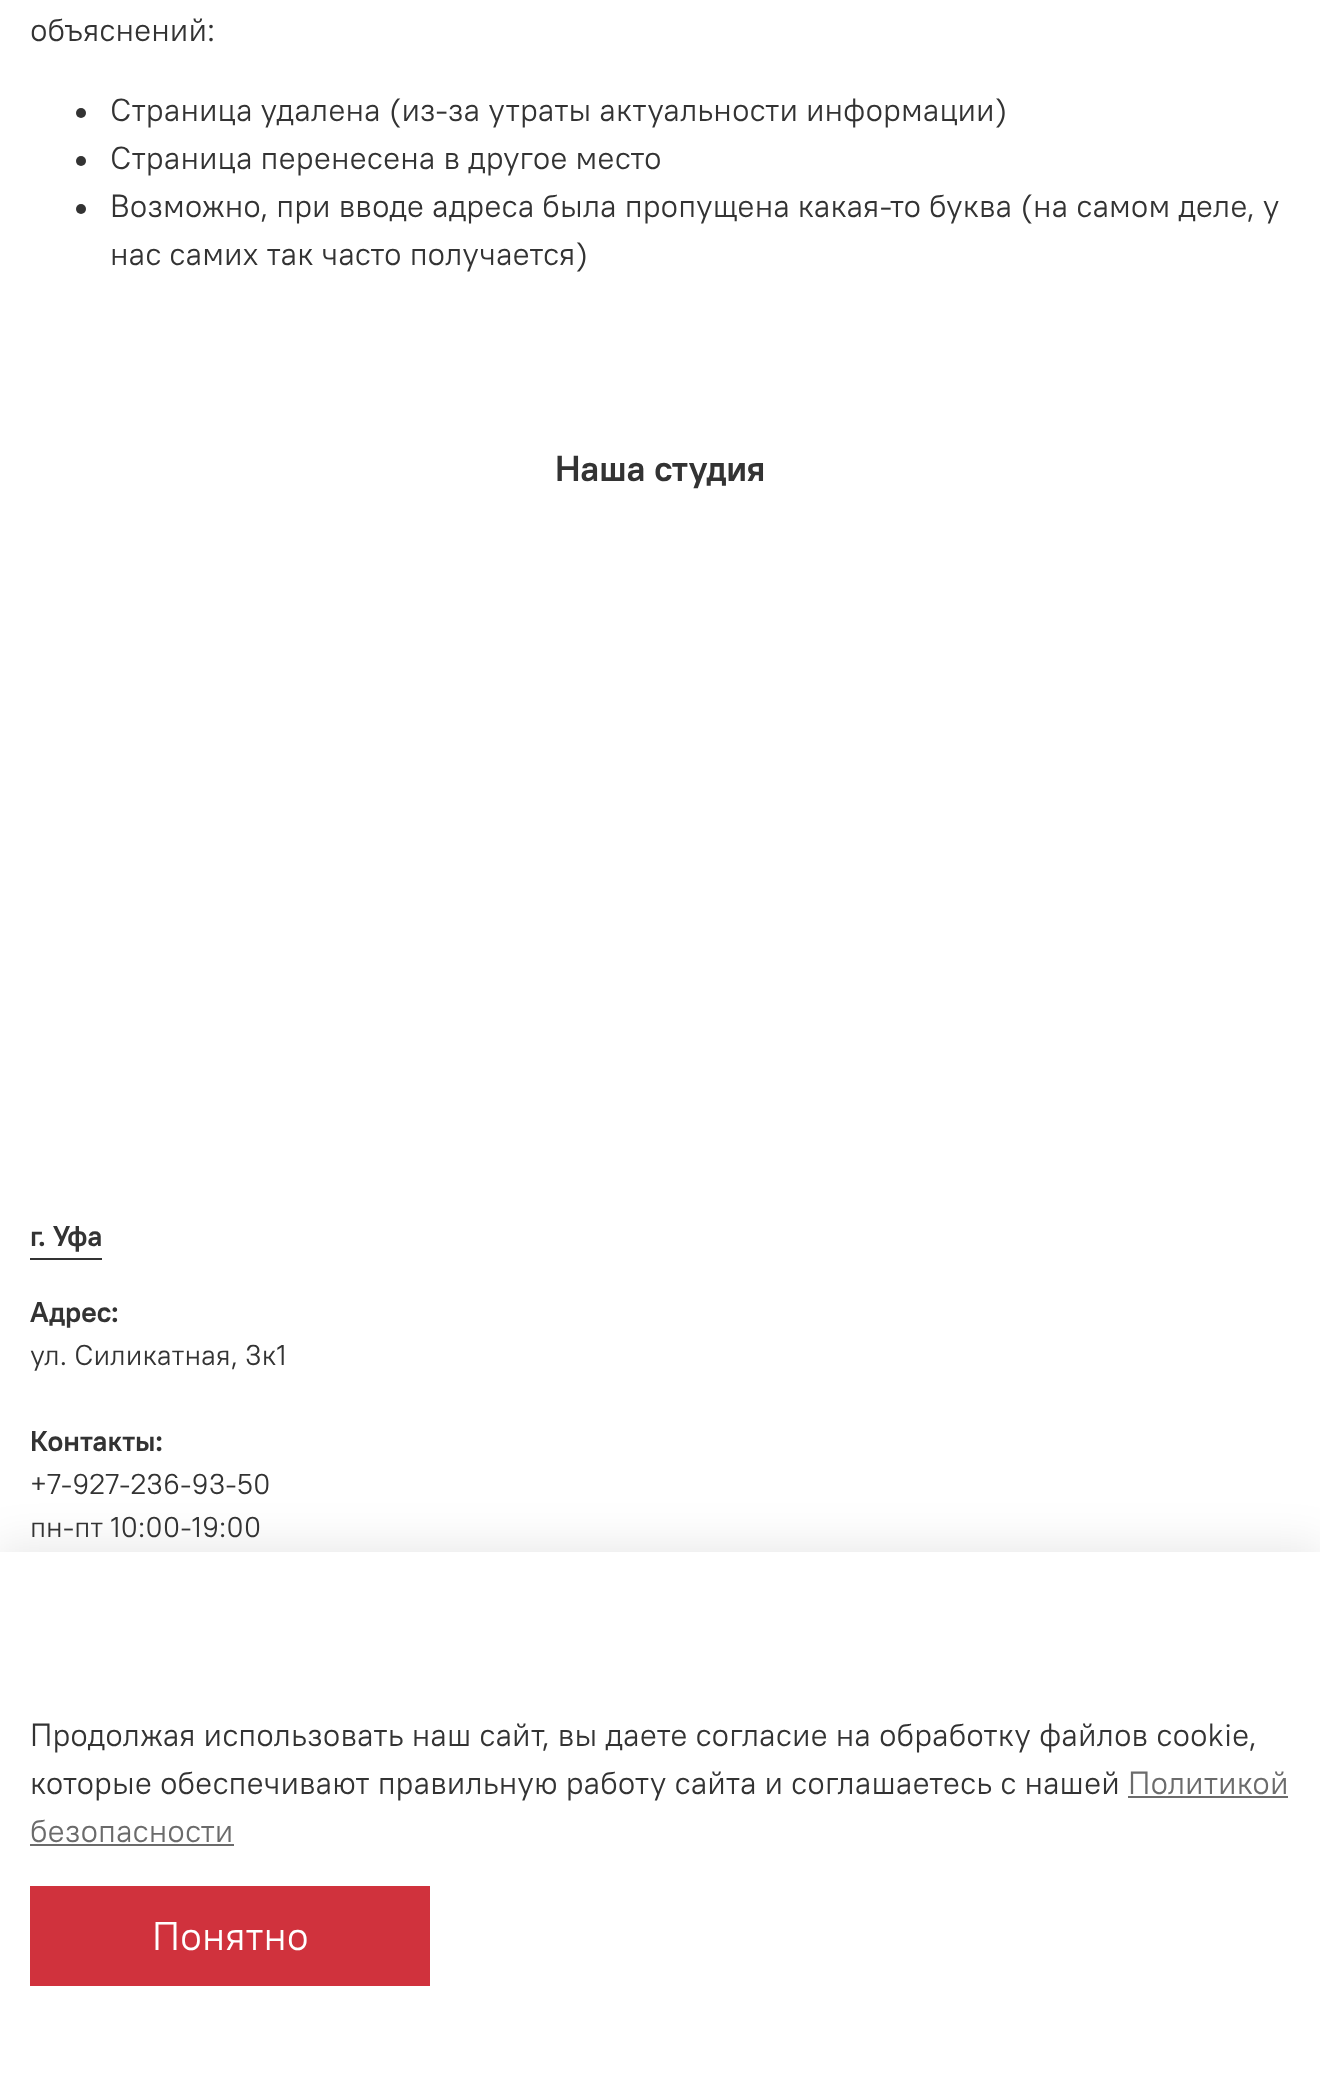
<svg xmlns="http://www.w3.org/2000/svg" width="1320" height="2092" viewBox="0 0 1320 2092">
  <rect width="100%" height="100%" fill="#fff"/>
  <circle cx="81" cy="113" r="5" fill="#333"/>
  <circle cx="81" cy="161" r="5" fill="#333"/>
  <circle cx="81" cy="209" r="5" fill="#333"/>
  <path d="M30 1258h72v2H30z" fill="#333"/>
  <path d="M-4 1546h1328v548H-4z" fill="#00000017" filter="blur(23px)"/>
  <path d="M0 1552h1320v540H0z" fill="#fff"/>
  <path d="M1128 1796h160v2H1128z" fill="#6b6b6b"/>
  <path d="M30 1844h204v2H30z" fill="#6b6b6b"/>
  <path d="M30 1886h400v100H30z" fill="#d0323d"/>
  <g font-family="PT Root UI" font-size="32" fill="#333">
    <text x="30" y="41">объяснений:</text>
    <text x="110" y="121">Страница удалена (из-за утраты актуальности информации)</text>
    <text x="110" y="169">Страница перенесена в другое место</text>
    <text x="110" y="217">Возможно, при вводе адреса была пропущена какая-то буква (на самом деле, у</text>
    <text x="110" y="265">нас самих так часто получается)</text>
  </g>
  <text x="555" y="481" font-family="PT Root UI" font-size="36" font-weight="bold" fill="#333">Наша студия</text>
  <g font-family="PT Root UI" font-size="28.75" font-weight="bold" fill="#333">
    <text x="30" y="1246">г. Уфа</text>
    <text x="30" y="1322">Адрес:</text>
  </g>
  <text x="30" y="1365" font-family="PT Root UI" font-size="28.75" fill="#333">ул. Силикатная, 3к1</text>
  <text x="30" y="1451" font-family="PT Root UI" font-size="28.75" font-weight="bold" fill="#333">Контакты:</text>
  <g font-family="PT Root UI" font-size="28.75" fill="#333">
    <text x="30" y="1494">+7-927-236-93-50</text>
    <text x="30" y="1537">пн-пт 10:00-19:00</text>
  </g>
  <g font-family="PT Root UI" font-size="32" fill="#333">
    <text x="30" y="1746">Продолжая использовать наш сайт, вы даете согласие на обработку файлов cookie,</text>
    <text x="30" y="1794">которые обеспечивают правильную работу сайта и соглашаетесь с нашей</text>
  </g>
  <g font-family="PT Root UI" font-size="32" fill="#6b6b6b">
    <text x="1128" y="1794">Политикой</text>
    <text x="30" y="1842">безопасности</text>
  </g>
  <text x="152" y="1950" font-family="PT Root UI" font-size="40" fill="#fff">Понятно</text>
</svg>
